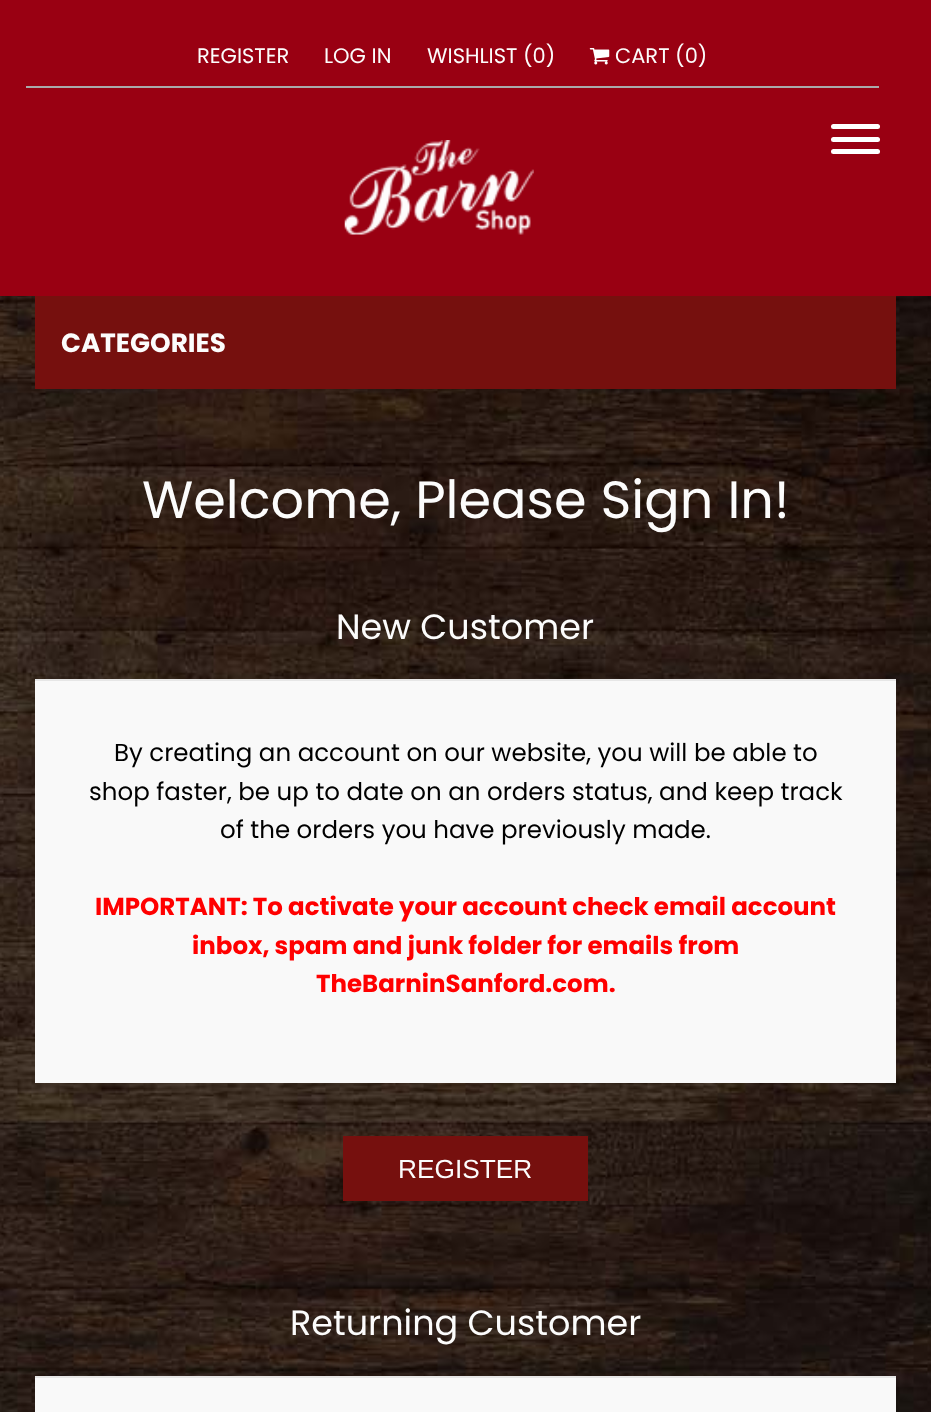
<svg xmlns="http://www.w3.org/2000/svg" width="931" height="1412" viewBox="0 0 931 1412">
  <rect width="100%" height="100%" fill="#fff"/>
  <image x="0" y="296" width="931" height="1116" href="img/1.png"/>
  <path d="M0 0h931v296H0z" fill="#990012"/>
  <path d="M26 86h853v2H26z" fill="#aaa"/>
  <image x="589" y="48" width="21" height="17" href="img/2.png"/>
  <image x="344" y="140" width="190" height="95" href="img/3.png"/>
  <rect x="831" y="124" width="49" height="5" rx="2.5" fill="#fff"/>
  <rect x="831" y="137" width="49" height="5" rx="2.5" fill="#fff"/>
  <rect x="831" y="149" width="49" height="5" rx="2.5" fill="#fff"/>
  <path d="M35 296h861v93H35z" fill="#76100e"/>
  <path d="M35 681h861v402H35z" fill="#f9f9f9"/>
  <path d="M35 679h861v2H35z" fill="#e6e6e6"/>
  <path d="M343 1136h245v65H343z" fill="#76100e"/>
  <path d="M35 1378h861v34H35z" fill="#f9f9f9"/>
  <path d="M35 1376h861v2H35z" fill="#e6e6e6"/>
  <g font-family="Poppins" font-size="21" fill="#fcfcfc">
    <text x="197" y="63">REGISTER</text>
    <text x="324" y="63">LOG IN</text>
    <text x="427" y="63">WISHLIST (0)</text>
    <text x="615" y="63">CART (0)</text>
  </g>
  <text x="61" y="352" font-family="Poppins" font-size="26.25" font-weight="bold" fill="#fcfcfc">CATEGORIES</text>
  <text x="142" y="518" font-family="Poppins" font-size="52.5" fill="#fcfcfc">Welcome, Please Sign In!</text>
  <text x="336" y="639" font-family="Poppins" font-size="35" fill="#fcfcfc">New Customer</text>
  <g font-family="Poppins" font-size="24.5" fill="#000">
    <text x="114" y="761">By creating an account on our website, you will be able to</text>
    <text x="89" y="800">shop faster, be up to date on an orders status, and keep track</text>
    <text x="220" y="838">of the orders you have previously made.</text>
  </g>
  <g font-family="Poppins" font-size="24.5" font-weight="bold" fill="#f00">
    <text x="95" y="915">IMPORTANT: To activate your account check email account</text>
    <text x="192" y="954">inbox, spam and junk folder for emails from</text>
    <text x="316" y="992">TheBarninSanford.com.</text>
  </g>
  <text x="398" y="1178" font-family="Liberation Sans" font-size="26.25" fill="#fcfcfc">REGISTER</text>
  <text x="290" y="1335" font-family="Poppins" font-size="35" fill="#fcfcfc">Returning Customer</text>
</svg>
